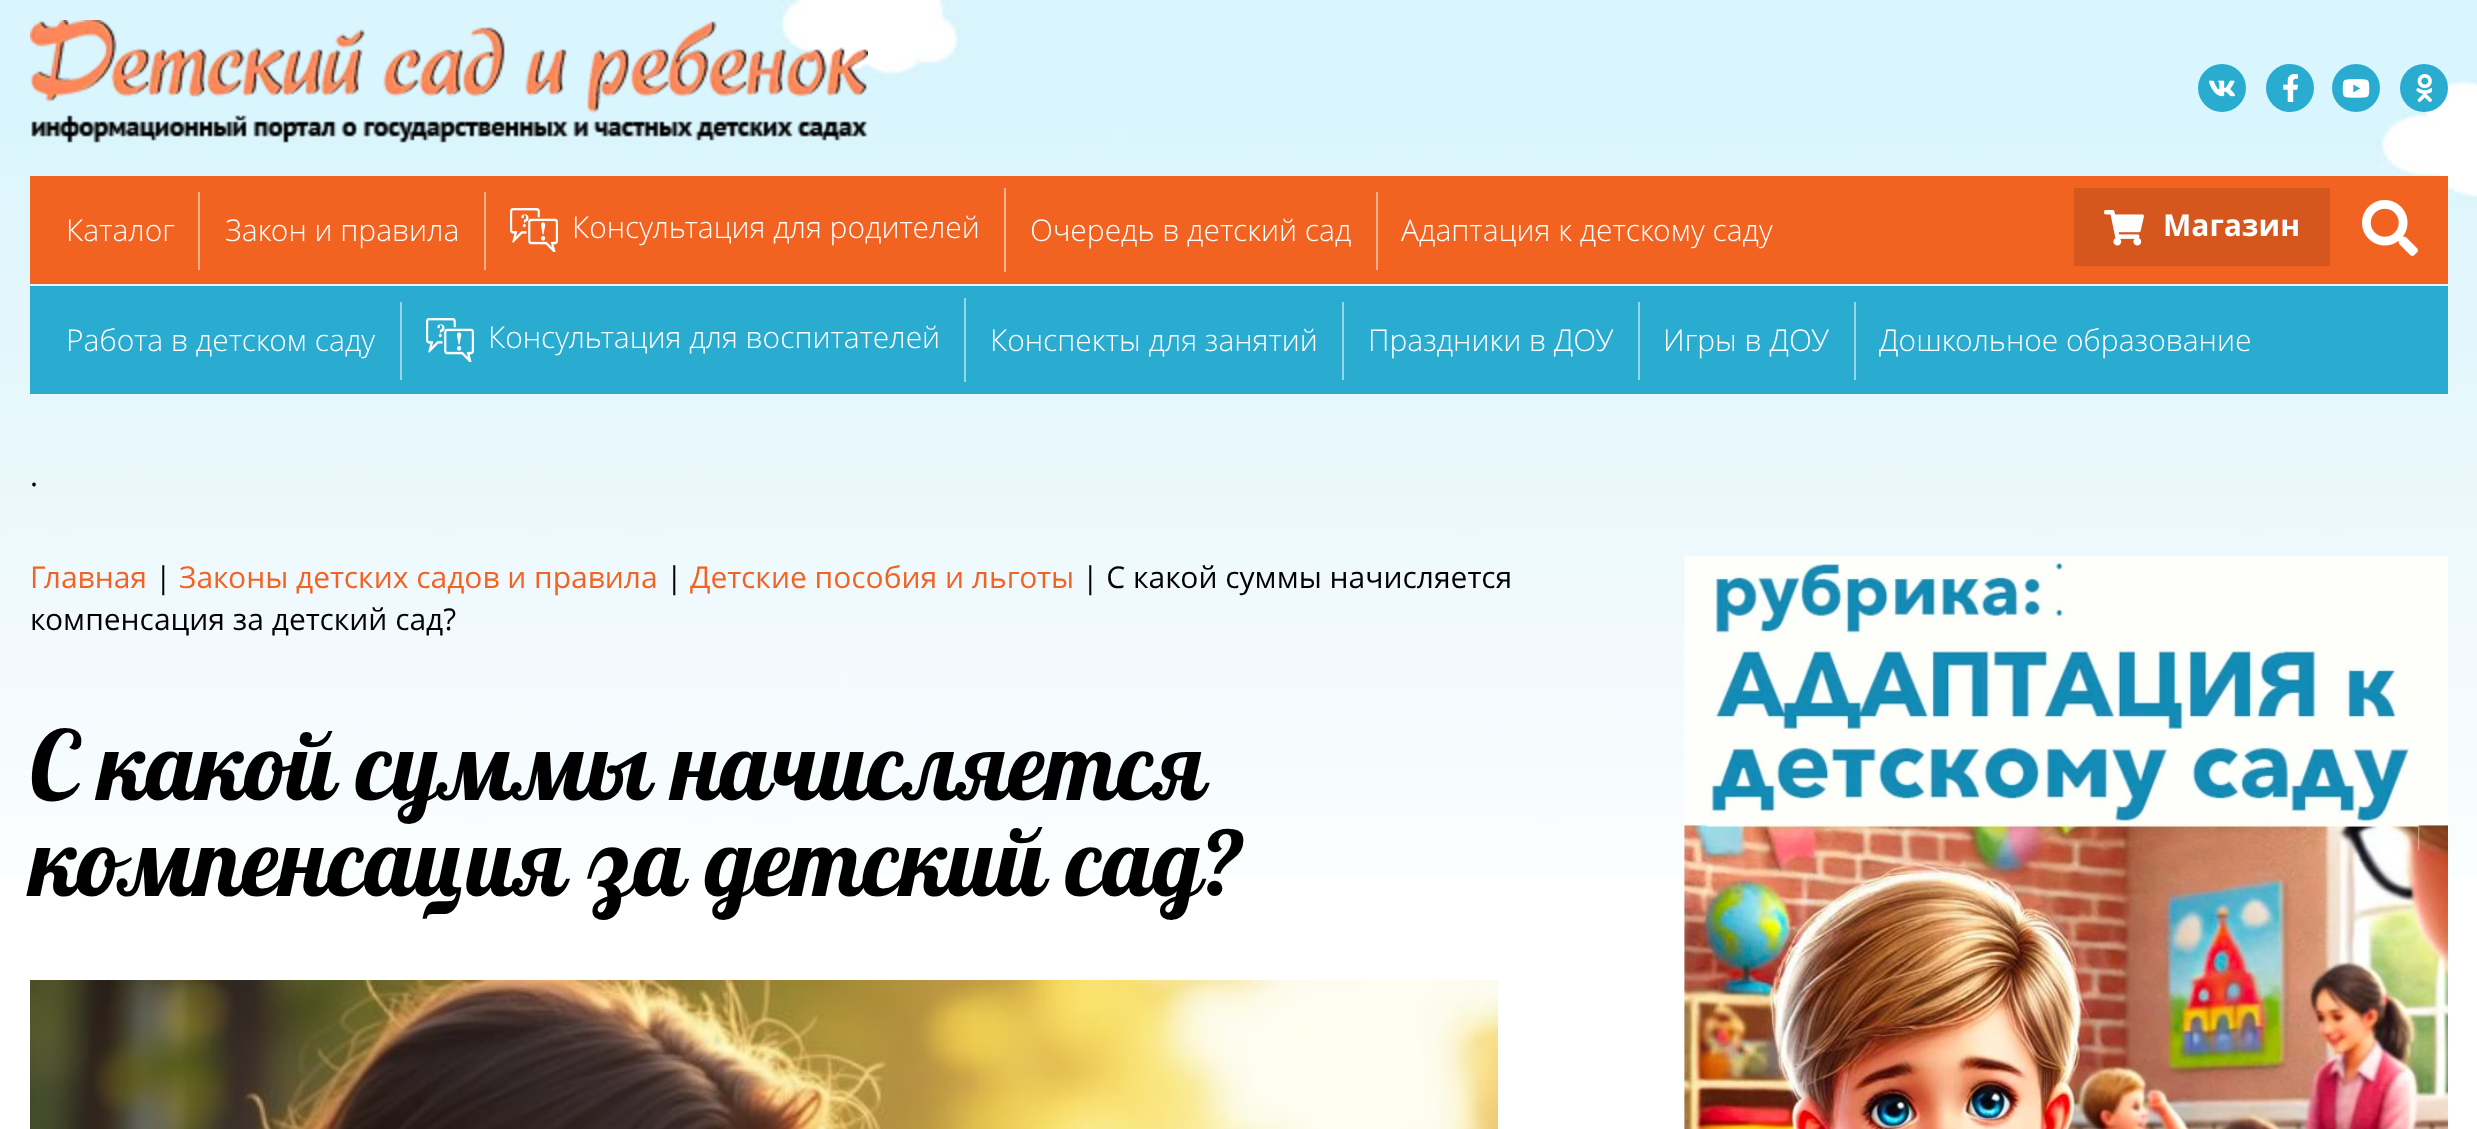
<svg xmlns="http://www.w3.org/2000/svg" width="2477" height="1129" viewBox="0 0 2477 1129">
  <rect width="100%" height="100%" fill="#fff"/>
  <image x="0" y="0" width="2477" height="878" href="img/1.png"/>
  <image x="30" y="20" width="838" height="123" href="img/2.png"/>
  <circle cx="2222" cy="88" r="24" fill="#2aacd1"/>
  <image x="2209" y="80" width="26" height="17" href="img/3.png"/>
  <circle cx="2290" cy="88" r="24" fill="#2aacd1"/>
  <image x="2283" y="74" width="15" height="28" href="img/4.png"/>
  <circle cx="2356" cy="88" r="24" fill="#2aacd1"/>
  <image x="2342" y="79" width="28" height="19" href="img/5.png"/>
  <circle cx="2424" cy="88" r="24" fill="#2aacd1"/>
  <image x="2416" y="74" width="16" height="28" href="img/6.png"/>
  <path d="M30 176h2418v108H30z" fill="#f26322"/>
  <path d="M198 192h2v78H198z" fill="#f9b191"/>
  <path d="M484 192h2v78H484z" fill="#f9b191"/>
  <path d="M1004 188h2v84H1004z" fill="#f9b191"/>
  <image x="510" y="208" width="48" height="44" href="img/7.png"/>
  <path d="M1376 192h2v78H1376z" fill="#f9b191"/>
  <path d="M2074 188h256v78H2074z" fill="#d5571e"/>
  <image x="2104" y="210" width="40" height="36" href="img/8.png"/>
  <image x="2362" y="200" width="56" height="56" href="img/9.png"/>
  <path d="M30 286h2418v108H30z" fill="#2aacd1"/>
  <path d="M400 302h2v78H400z" fill="#95d6e8"/>
  <path d="M964 298h2v84H964z" fill="#95d6e8"/>
  <image x="426" y="318" width="48" height="44" href="img/10.png"/>
  <path d="M1342 302h2v78H1342z" fill="#95d6e8"/>
  <path d="M1638 302h2v78H1638z" fill="#95d6e8"/>
  <path d="M1854 302h2v78H1854z" fill="#95d6e8"/>
  <image x="30" y="980" width="1468" height="149" href="img/11.png"/>
  <image x="1684" y="556" width="764" height="573" href="img/12.png"/>
  <g font-family="Open Sans" font-size="30" font-weight="300" fill="#fff">
    <text x="66" y="241">Каталог</text>
    <text x="225" y="241">Закон и правила</text>
    <text x="572" y="238">Консультация для родителей</text>
    <text x="1030" y="241">Очередь в детский сад</text>
    <text x="1401" y="241">Адаптация к детскому саду</text>
  </g>
  <text x="2163" y="236" font-family="Open Sans" font-size="30" font-weight="bold" fill="#fff">Магазин</text>
  <g font-family="Open Sans" font-size="30" font-weight="300" fill="#fff">
    <text x="66" y="351">Работа в детском саду</text>
    <text x="488" y="348">Консультация для воспитателей</text>
    <text x="990" y="351">Конспекты для занятий</text>
    <text x="1368" y="351">Праздники в ДОУ</text>
    <text x="1663" y="351">Игры в ДОУ</text>
    <text x="1879" y="351">Дошкольное образование</text>
  </g>
  <text x="30" y="486" font-family="Open Sans" font-size="30" fill="#000">.</text>
  <text x="30" y="588" font-family="Open Sans" font-size="30" fill="#f26322">Главная</text>
  <text x="155" y="588" font-family="Open Sans" font-size="30" fill="#000">|</text>
  <text x="179" y="588" font-family="Open Sans" font-size="30" fill="#f26322">Законы детских садов и правила</text>
  <text x="666" y="588" font-family="Open Sans" font-size="30" fill="#000">|</text>
  <text x="690" y="588" font-family="Open Sans" font-size="30" fill="#f26322">Детские пособия и льготы</text>
  <g font-family="Open Sans" font-size="30" fill="#000">
    <text x="1082" y="588">| С какой суммы начисляется</text>
    <text x="30" y="630">компенсация за детский сад?</text>
  </g>
  <g font-family="'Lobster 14'" font-size="96" fill="#000">
    <text x="30" y="800">С какой суммы начисляется</text>
    <text x="30" y="896">компенсация за детский сад?</text>
  </g>
</svg>
